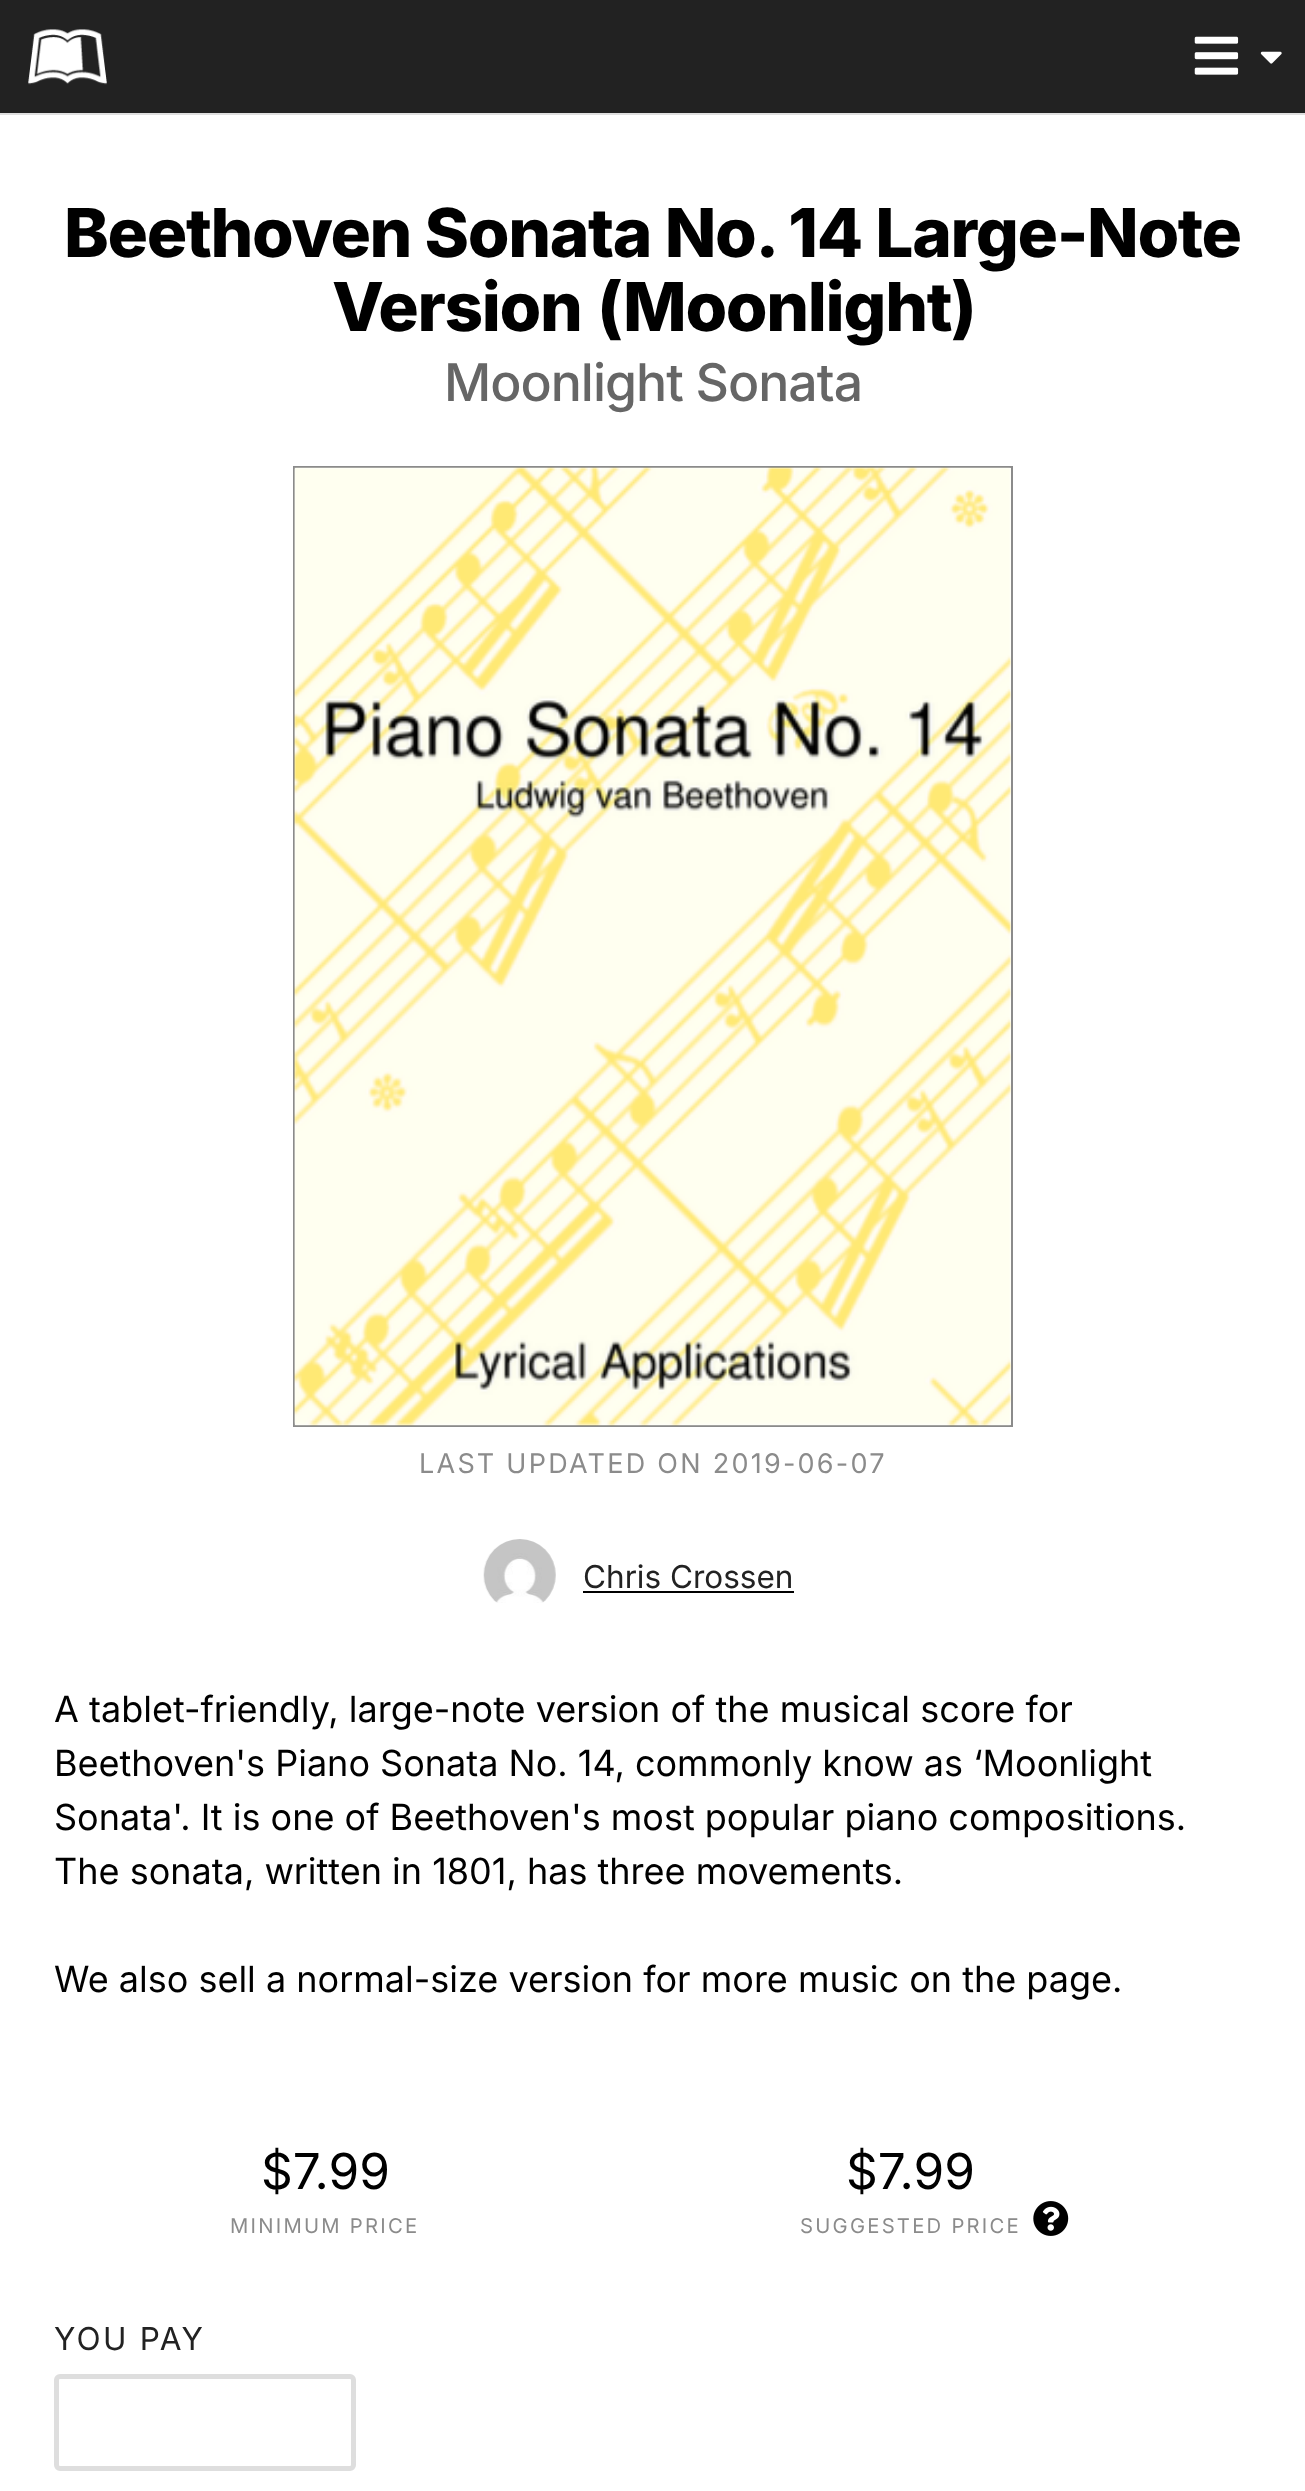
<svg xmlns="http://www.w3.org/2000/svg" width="1305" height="2491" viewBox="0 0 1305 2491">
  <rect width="100%" height="100%" fill="#222"/>
  <image x="28" y="29" width="79" height="56" href="img/1.png"/>
  <image x="1194" y="36" width="45" height="39" href="img/2.png"/>
  <image x="1260" y="51" width="22" height="13" href="img/3.png"/>
  <path d="M0 115h1305v2376H0z" fill="#fff"/>
  <path d="M0 113h1305v2H0z" fill="#dedede"/>
  <path d="M294 467h718v959H294z" fill="none" stroke="#8b8b8b" stroke-width="2"/>
  <image x="294" y="467" width="717" height="959" href="img/4.png"/>
  <image x="483" y="1539" width="73" height="64" href="img/5.png"/>
  <path d="M583 1591h211v2H583z" fill="#000"/>
  <image x="1033" y="2201" width="36" height="35" href="img/6.png"/>
  <rect x="56.5" y="2376.5" width="297" height="92" rx="3.5" fill="none" stroke="#dedede" stroke-width="5"/>
  <g font-family="Inter" font-size="67.5" font-weight="800" letter-spacing="-1.35" fill="#000">
    <text x="64" y="257">Beethoven Sonata No. 14 Large-Note</text>
    <text x="332" y="331" word-spacing="2">Version (Moonlight)</text>
  </g>
  <text x="444" y="401" font-family="Inter" font-size="51.75" font-weight="500" letter-spacing="-1" fill="#666">Moonlight Sonata</text>
  <text x="419" y="1473" font-family="Inter" font-size="27" letter-spacing="2.25" fill="#8b8b8b">LAST UPDATED ON 2019-06-07</text>
  <text x="583" y="1588" font-family="Inter" font-size="31.5" fill="#222">Chris Crossen</text>
  <g font-family="Inter" font-size="36" fill="#000">
    <text x="54" y="1722">A tablet-friendly, large-note version of the musical score for</text>
    <text x="54" y="1776">Beethoven's Piano Sonata No. 14, commonly know as ‘Moonlight</text>
    <text x="54" y="1830">Sonata'. It is one of Beethoven's most popular piano compositions.</text>
    <text x="54" y="1884">The sonata, written in 1801, has three movements.</text>
    <text x="54" y="1992">We also sell a normal-size version for more music on the page.</text>
  </g>
  <text x="261" y="2189" font-family="Inter" font-size="49.5" fill="#000">$7.99</text>
  <text x="230" y="2233" font-family="Inter" font-size="20.25" letter-spacing="2.25" fill="#8b8b8b">MINIMUM PRICE</text>
  <text x="846" y="2189" font-family="Inter" font-size="49.5" fill="#000">$7.99</text>
  <text x="800" y="2233" font-family="Inter" font-size="20.25" letter-spacing="2.25" fill="#8b8b8b">SUGGESTED PRICE</text>
  <text x="54" y="2350" font-family="Inter" font-size="31.5" letter-spacing="2.25" fill="#222">YOU PAY</text>
</svg>
